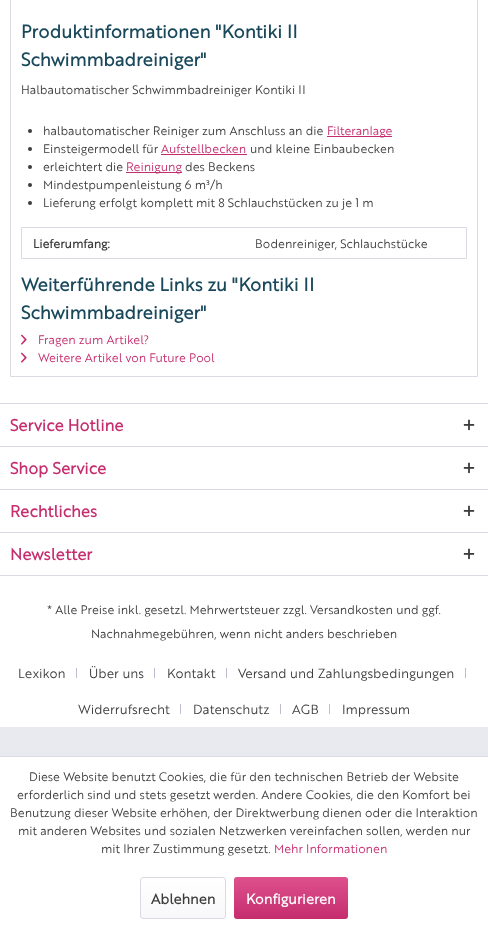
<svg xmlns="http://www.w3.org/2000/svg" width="488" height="929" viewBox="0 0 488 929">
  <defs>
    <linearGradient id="g1" gradientUnits="userSpaceOnUse" x1="183" y1="878" x2="183" y2="918"><stop offset="0" stop-color="#fff"/><stop offset="1" stop-color="#f8f8fa"/></linearGradient>
    <linearGradient id="g2" gradientUnits="userSpaceOnUse" x1="291" y1="877" x2="291" y2="919"><stop offset="0" stop-color="#de518d"/><stop offset="1" stop-color="#c52d6e"/></linearGradient>
  </defs>
  <rect width="100%" height="100%" fill="#e9e9f0"/>
  <path d="M0 0h488v403H0z" fill="#fff"/>
  <path d="M10.5 -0.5h467v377H10.5z" fill="none" stroke="#dadae5"/>
  <circle cx="30" cy="131" r="2" fill="#3c3c3c"/>
  <path d="M327 136h65v1H327z" fill="#c52d6e"/>
  <circle cx="30" cy="149" r="2" fill="#3c3c3c"/>
  <path d="M161 154h86v1H161z" fill="#c52d6e"/>
  <circle cx="30" cy="167" r="2" fill="#3c3c3c"/>
  <path d="M126 172h56v1H126z" fill="#c52d6e"/>
  <circle cx="30" cy="185" r="2" fill="#3c3c3c"/>
  <circle cx="30" cy="203" r="2" fill="#3c3c3c"/>
  <path d="M21.5 227.5h445v31H21.5z" fill="none" stroke="#dadae5"/>
  <image x="21" y="334" width="6" height="11" href="img/1.png"/>
  <image x="21" y="352" width="6" height="11" href="img/1.png"/>
  <path d="M0 404h488v323H0z" fill="#fff"/>
  <path d="M0 403h488v1H0z" fill="#dadae5"/>
  <image x="463" y="419" width="12" height="12" href="img/2.png"/>
  <path d="M0 446h488v1H0z" fill="#dadae5"/>
  <image x="463" y="462" width="12" height="12" href="img/2.png"/>
  <path d="M0 489h488v1H0z" fill="#dadae5"/>
  <image x="463" y="505" width="12" height="12" href="img/2.png"/>
  <path d="M0 532h488v1H0z" fill="#dadae5"/>
  <path d="M0 575h488v1H0z" fill="#dadae5"/>
  <image x="463" y="548" width="12" height="12" href="img/2.png"/>
  <path d="M76 668h1v10H76z" fill="#bcbcd0"/>
  <path d="M154 668h1v10H154z" fill="#bcbcd0"/>
  <path d="M226 668h1v10H226z" fill="#bcbcd0"/>
  <path d="M465 668h1v10H465z" fill="#bcbcd0"/>
  <path d="M180 704h1v10H180z" fill="#bcbcd0"/>
  <path d="M280 704h1v10H280z" fill="#bcbcd0"/>
  <path d="M329 704h1v10H329z" fill="#bcbcd0"/>
  <path d="M0 757h488v172H0z" fill="#fff"/>
  <path d="M0 756h488v1H0z" fill="#dadae5"/>
  <rect x="141" y="878" width="84" height="40" rx="2" fill="url(#g1)"/>
  <rect x="140.5" y="877.5" width="85" height="41" rx="2.5" fill="none" stroke="#dadae5"/>
  <rect x="234" y="877" width="114" height="42" rx="3" fill="url(#g2)"/>
  <g font-family="'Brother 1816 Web'" font-size="18" font-weight="bold" fill="#19485b">
    <text x="21" y="38">Produktinformationen "Kontiki II</text>
    <text x="21" y="66">Schwimmbadreiniger"</text>
  </g>
  <g font-family="'Brother 1816 Web'" font-size="12" fill="#3c3c3c">
    <text x="21" y="94">Halbautomatischer Schwimmbadreiniger Kontiki II</text>
    <text x="43" y="135">halbautomatischer Reiniger zum Anschluss an die</text>
  </g>
  <text x="327" y="135" font-family="'Brother 1816 Web'" font-size="12" fill="#c52d6e">Filteranlage</text>
  <text x="43" y="153" font-family="'Brother 1816 Web'" font-size="12" fill="#3c3c3c">Einsteigermodell für</text>
  <text x="161" y="153" font-family="'Brother 1816 Web'" font-size="12" fill="#c52d6e">Aufstellbecken</text>
  <g font-family="'Brother 1816 Web'" font-size="12" fill="#3c3c3c">
    <text x="250" y="153">und kleine Einbaubecken</text>
    <text x="43" y="171">erleichtert die</text>
  </g>
  <text x="126" y="171" font-family="'Brother 1816 Web'" font-size="12" fill="#c52d6e">Reinigung</text>
  <g font-family="'Brother 1816 Web'" font-size="12" fill="#3c3c3c">
    <text x="185" y="171">des Beckens</text>
    <text x="43" y="189">Mindestpumpenleistung 6 m³/h</text>
    <text x="43" y="207">Lieferung erfolgt komplett mit 8 Schlauchstücken zu je 1 m</text>
  </g>
  <text x="33" y="248" font-family="'Brother 1816 Web'" font-size="12" font-weight="bold" fill="#3c3c3c">Lieferumfang:</text>
  <text x="255" y="248" font-family="'Brother 1816 Web'" font-size="12" fill="#3c3c3c">Bodenreiniger, Schlauchstücke</text>
  <g font-family="'Brother 1816 Web'" font-size="18" font-weight="bold" fill="#19485b">
    <text x="21" y="291">Weiterführende Links zu "Kontiki II</text>
    <text x="21" y="319">Schwimmbadreiniger"</text>
  </g>
  <g font-family="'Brother 1816 Web'" font-size="12" fill="#c52d6e">
    <text x="38" y="344">Fragen zum Artikel?</text>
    <text x="38" y="362">Weitere Artikel von Future Pool</text>
  </g>
  <g font-family="'Brother 1816 Web'" font-size="16" font-weight="bold" fill="#c52d6e">
    <text x="10" y="431">Service Hotline</text>
    <text x="10" y="474">Shop Service</text>
    <text x="10" y="517">Rechtliches</text>
    <text x="10" y="560">Newsletter</text>
  </g>
  <g font-family="'Brother 1816 Web'" font-size="12" fill="#3c3c3c">
    <text x="47" y="614">* Alle Preise inkl. gesetzl. Mehrwertsteuer zzgl. Versandkosten und ggf.</text>
    <text x="91" y="638">Nachnahmegebühren, wenn nicht anders beschrieben</text>
  </g>
  <g font-family="'Brother 1816 Web'" font-size="13" fill="#3c3c3c">
    <text x="18" y="678">Lexikon</text>
    <text x="89" y="678">Über uns</text>
    <text x="167" y="678">Kontakt</text>
    <text x="238" y="678">Versand und Zahlungsbedingungen</text>
    <text x="78" y="714">Widerrufsrecht</text>
    <text x="193" y="714">Datenschutz</text>
    <text x="292" y="714">AGB</text>
    <text x="342" y="714">Impressum</text>
  </g>
  <g font-family="'Brother 1816 Web'" font-size="12" fill="#3c3c3c">
    <text x="29" y="781">Diese Website benutzt Cookies, die für den technischen Betrieb der Website</text>
    <text x="17" y="799">erforderlich sind und stets gesetzt werden. Andere Cookies, die den Komfort bei</text>
    <text x="10" y="817">Benutzung dieser Website erhöhen, der Direktwerbung dienen oder die Interaktion</text>
    <text x="18" y="835">mit anderen Websites und sozialen Netzwerken vereinfachen sollen, werden nur</text>
    <text x="101" y="853">mit Ihrer Zustimmung gesetzt.</text>
  </g>
  <text x="274" y="853" font-family="'Brother 1816 Web'" font-size="12" fill="#c52d6e">Mehr Informationen</text>
  <text x="151" y="904" font-family="'Brother 1816 Web'" font-size="14" font-weight="bold" fill="#3c3c3c">Ablehnen</text>
  <text x="246" y="904" font-family="'Brother 1816 Web'" font-size="14" font-weight="bold" fill="#fff">Konfigurieren</text>
</svg>
